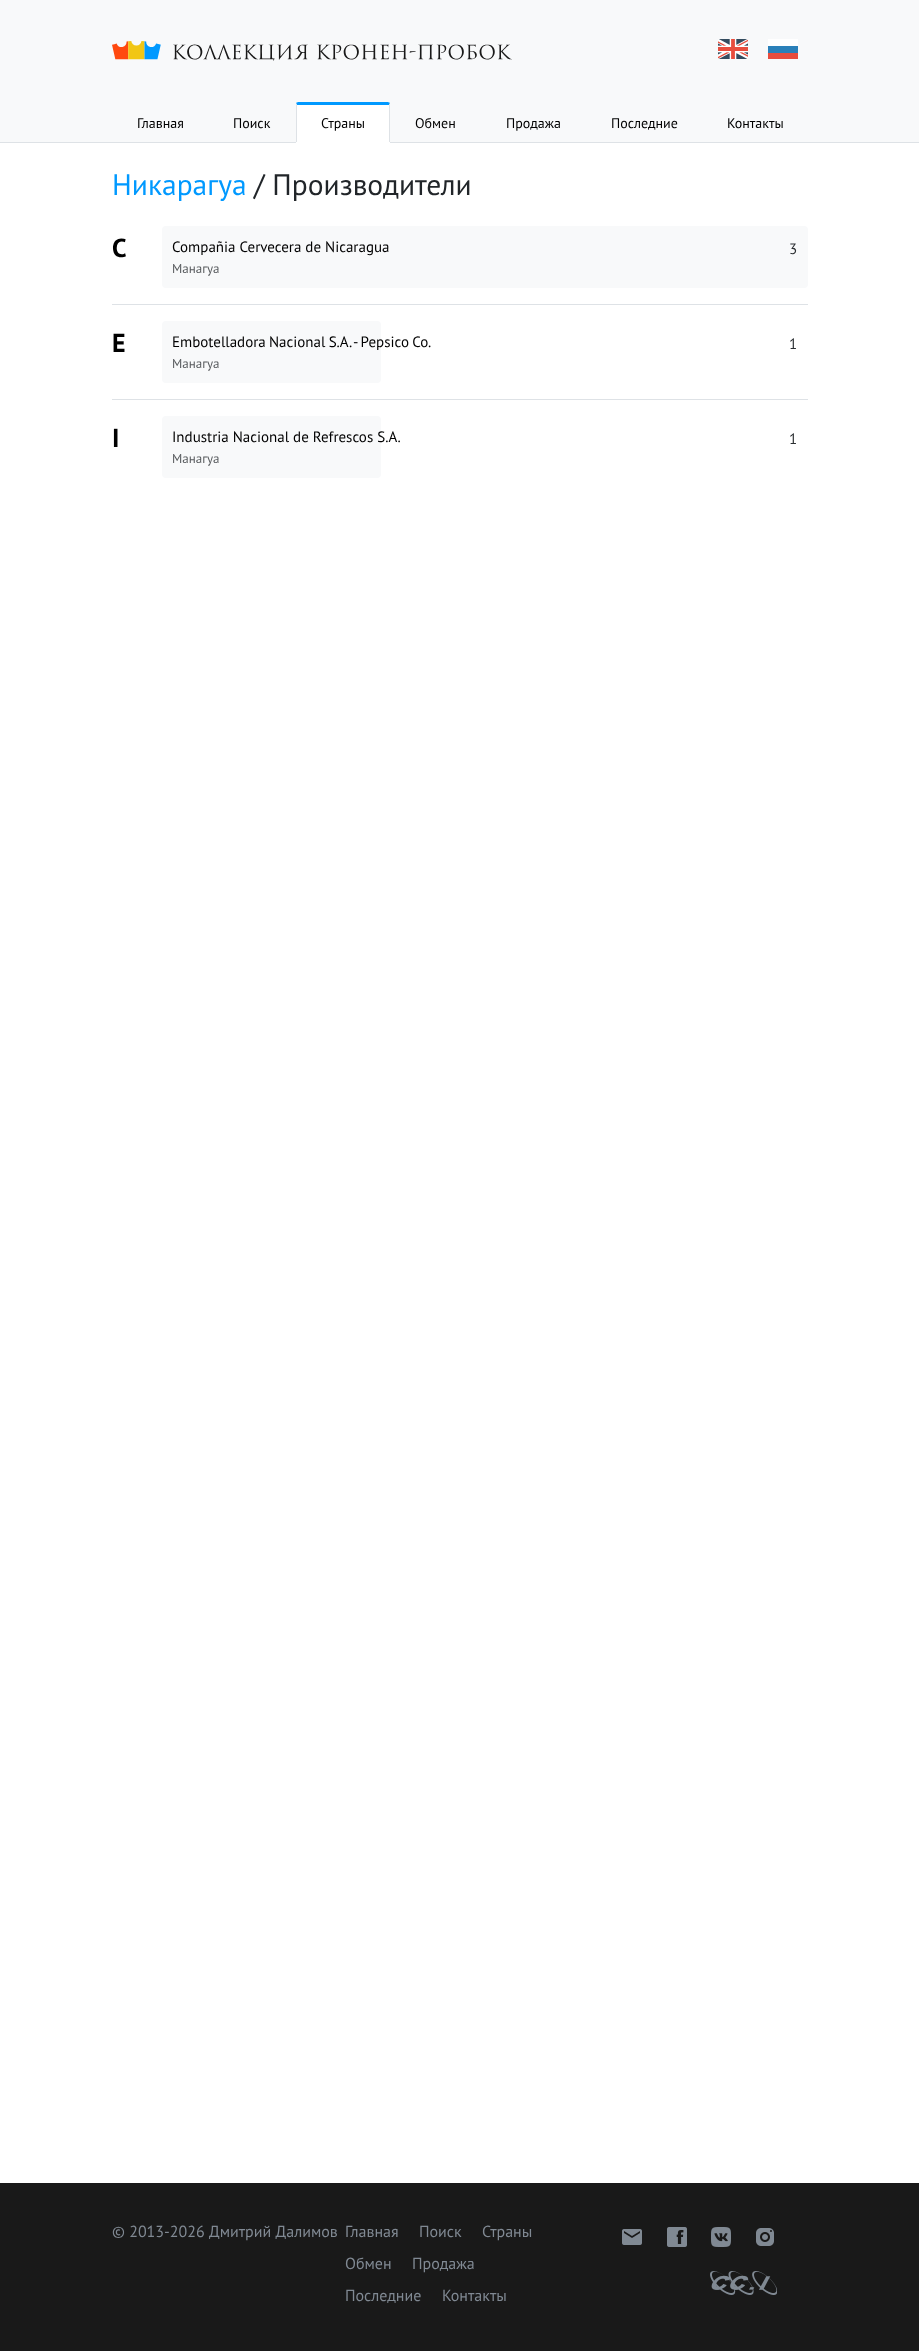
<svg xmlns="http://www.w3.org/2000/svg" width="919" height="2351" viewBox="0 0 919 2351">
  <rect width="100%" height="100%" fill="#fff"/>
  <path d="M0 0h919v142H0z" fill="#f8f9fa"/>
  <path d="M0 142h919v1H0z" fill="#dee2e6"/>
  <image x="112" y="41" width="400" height="20" href="img/1.png"/>
  <image x="718" y="39" width="30" height="20" href="img/2.png"/>
  <image x="768" y="39" width="30" height="20" href="img/3.png"/>
  <path d="M296 142h94v1H296z" fill="#fff"/>
  <path d="M299 102H387C388.5 102 390 103.5 390 105V142H296V105C296 103.5 297.5 102 299 102Z" fill="#fff"/>
  <path d="M299 102C298 102 297 102 296 103L297 105H389L390 103C389 102 388 102 387 102Z" fill="#09f"/>
  <path d="M389 142H390V105L389.5 103L389 105Z" fill="#dee2e6"/>
  <path d="M296 142H297V105L296.5 103L296 105Z" fill="#dee2e6"/>
  <path d="M112 304h696v1H112z" fill="#dee2e6"/>
  <rect x="162" y="226" width="646" height="62" rx="4" fill="#f8f9fa"/>
  <path d="M112 399h696v1H112z" fill="#dee2e6"/>
  <rect x="162" y="321" width="219" height="62" rx="4" fill="#f8f9fa"/>
  <rect x="162" y="416" width="219" height="62" rx="4" fill="#f8f9fa"/>
  <path d="M0 2183h919v168H0z" fill="#191919"/>
  <image x="622" y="2229" width="20" height="16" href="img/4.png"/>
  <image x="667" y="2227" width="20" height="20" href="img/5.png"/>
  <image x="711" y="2227" width="20" height="20" href="img/6.png"/>
  <image x="756" y="2228" width="18" height="18" href="img/7.png"/>
  <image x="710" y="2271" width="67" height="24" href="img/8.png"/>
  <g font-family="PT Sans" font-size="14" fill="#000">
    <text x="137" y="128">Главная</text>
    <text x="233" y="128">Поиск</text>
    <text x="321" y="128">Страны</text>
    <text x="415" y="128">Обмен</text>
    <text x="506" y="128">Продажа</text>
    <text x="611" y="128">Последние</text>
    <text x="727" y="128">Контакты</text>
  </g>
  <text x="112" y="195" font-family="PT Sans" font-size="29.5" fill="#09f">Никарагуа</text>
  <text x="254" y="195" font-family="PT Sans" font-size="29.5" fill="#212529">/ Производители</text>
  <text x="112" y="257" font-family="PT Sans" font-size="26" font-weight="bold" fill="#000">C</text>
  <text x="172" y="252" font-family="PT Sans" font-size="15" fill="#000">Compañia Cervecera de Nicaragua</text>
  <text x="789" y="254" font-family="PT Sans" font-size="15" fill="#2b2f32">3</text>
  <text x="172" y="273" font-family="PT Sans" font-size="13" fill="#575a5d">Манагуа</text>
  <text x="112" y="352" font-family="PT Sans" font-size="26" font-weight="bold" fill="#000">E</text>
  <text x="172" y="347" word-spacing="-0.75" font-family="PT Sans" font-size="15" fill="#000">Embotelladora Nacional S.A. - Pepsico Co.</text>
  <text x="789" y="349" font-family="PT Sans" font-size="15" fill="#2b2f32">1</text>
  <text x="172" y="368" font-family="PT Sans" font-size="13" fill="#575a5d">Манагуа</text>
  <text x="112" y="447" font-family="PT Sans" font-size="26" font-weight="bold" fill="#000">I</text>
  <text x="172" y="442" font-family="PT Sans" font-size="15" fill="#000">Industria Nacional de Refrescos S.A.</text>
  <text x="789" y="444" font-family="PT Sans" font-size="15" fill="#2b2f32">1</text>
  <text x="172" y="463" font-family="PT Sans" font-size="13" fill="#575a5d">Манагуа</text>
  <g font-family="PT Sans" font-size="16" fill="#808993">
    <text x="112" y="2237">© 2013-2026 Дмитрий Далимов</text>
    <text x="345" y="2237">Главная</text>
    <text x="419" y="2237">Поиск</text>
    <text x="482" y="2237">Страны</text>
    <text x="345" y="2269">Обмен</text>
    <text x="412" y="2269">Продажа</text>
    <text x="345" y="2301">Последние</text>
    <text x="442" y="2301">Контакты</text>
  </g>
</svg>
